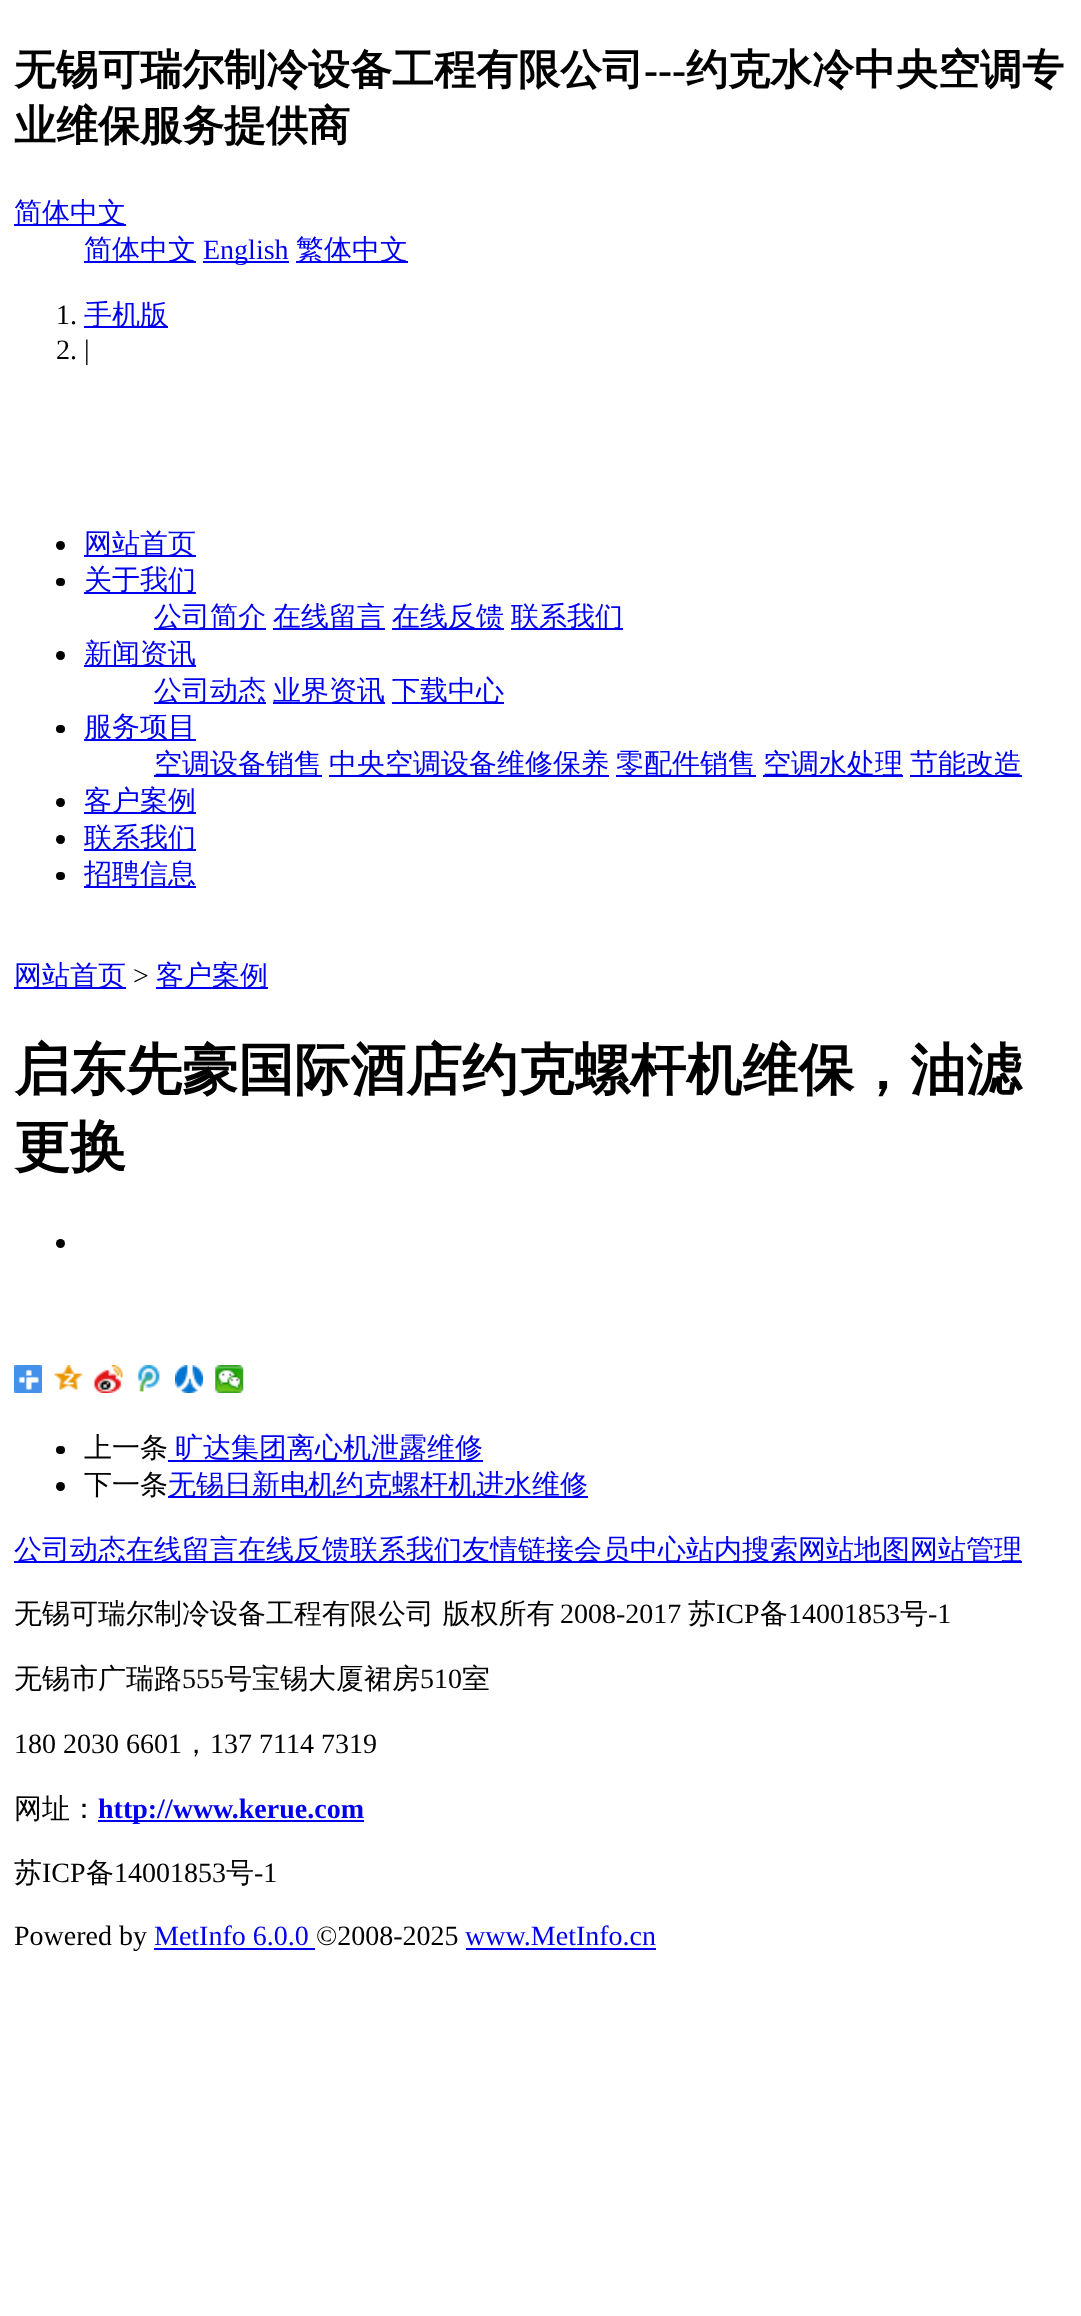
<svg xmlns="http://www.w3.org/2000/svg" width="1081" height="2316" viewBox="0 0 1081 2316">
  <rect width="100%" height="100%" fill="#fff"/>
  <path d="M14 224h112v2H14z" fill="#00e"/>
  <path d="M84 261h112v2H84z" fill="#00e"/>
  <path d="M203 261h86v2H203z" fill="#00e"/>
  <path d="M296 261h112v2H296z" fill="#00e"/>
  <path d="M84 326h84v2H84z" fill="#00e"/>
  <circle cx="60.5" cy="545.5" r="4.5" fill="#000"/>
  <path d="M84 555h112v2H84z" fill="#00e"/>
  <rect x="56" y="578" width="9" height="8" rx="4" fill="#000"/>
  <path d="M84 592h112v2H84z" fill="#00e"/>
  <path d="M154 628h112v2H154z" fill="#00e"/>
  <path d="M273 628h112v2H273z" fill="#00e"/>
  <path d="M392 628h112v2H392z" fill="#00e"/>
  <path d="M511 628h112v2H511z" fill="#00e"/>
  <circle cx="60.5" cy="655.5" r="4.5" fill="#000"/>
  <path d="M84 665h112v2H84z" fill="#00e"/>
  <path d="M154 702h112v2H154z" fill="#00e"/>
  <path d="M273 702h112v2H273z" fill="#00e"/>
  <path d="M392 702h112v2H392z" fill="#00e"/>
  <rect x="56" y="725" width="9" height="8" rx="4" fill="#000"/>
  <path d="M84 739h112v2H84z" fill="#00e"/>
  <path d="M154 775h168v2H154z" fill="#00e"/>
  <path d="M329 775h280v2H329z" fill="#00e"/>
  <path d="M616 775h140v2H616z" fill="#00e"/>
  <path d="M763 775h140v2H763z" fill="#00e"/>
  <path d="M910 775h112v2H910z" fill="#00e"/>
  <circle cx="60.5" cy="802.5" r="4.5" fill="#000"/>
  <path d="M84 812h112v2H84z" fill="#00e"/>
  <circle cx="60.5" cy="839.5" r="4.5" fill="#000"/>
  <path d="M84 849h112v2H84z" fill="#00e"/>
  <rect x="56" y="872" width="9" height="8" rx="4" fill="#000"/>
  <path d="M84 886h112v2H84z" fill="#00e"/>
  <path d="M14 987h112v2H14z" fill="#00e"/>
  <path d="M156 987h112v2H156z" fill="#00e"/>
  <circle cx="60.5" cy="1243.5" r="4.5" fill="#000"/>
  <image x="14" y="1365" width="28" height="28" href="img/1.png"/>
  <image x="54" y="1365" width="29" height="25" href="img/2.png"/>
  <image x="94" y="1365" width="29" height="28" href="img/3.png"/>
  <image x="137" y="1365" width="23" height="27" href="img/4.png"/>
  <image x="175" y="1365" width="28" height="28" href="img/5.png"/>
  <image x="215" y="1365" width="29" height="28" href="img/6.png"/>
  <rect x="56" y="1446" width="9" height="8" rx="4" fill="#000"/>
  <path d="M168 1460h315v2H168z" fill="#00e"/>
  <circle cx="60.5" cy="1486.5" r="4.5" fill="#000"/>
  <path d="M168 1496h420v2H168z" fill="#00e"/>
  <path d="M14 1561h1008v2H14z" fill="#00e"/>
  <path d="M98 1820h266v2H98z" fill="#00e"/>
  <path d="M154 1948h161v2H154z" fill="#00e"/>
  <path d="M466 1948h190v2H466z" fill="#00e"/>
  <text x="14" y="84" font-family="WenQuanYi Zen Hei" font-size="42" font-weight="bold" fill="#000">无锡可瑞尔制冷设备工程有限公司</text>
  <text x="644" y="84" font-family="Liberation Serif" font-size="42" font-weight="bold" fill="#000">---</text>
  <g font-family="WenQuanYi Zen Hei" font-size="42" font-weight="bold" fill="#000">
    <text x="686" y="84">约克水冷中央空调专</text>
    <text x="14" y="140">业维保服务提供商</text>
  </g>
  <g font-family="WenQuanYi Zen Hei" font-size="28" font-weight="500" fill="#00e">
    <text x="14" y="222">简体中文</text>
    <text x="84" y="259">简体中文</text>
  </g>
  <text x="203" y="259" font-family="Liberation Serif" font-size="28" fill="#00e">English</text>
  <text x="296" y="259" font-family="WenQuanYi Zen Hei" font-size="28" font-weight="500" fill="#00e">繁体中文</text>
  <text x="56" y="324" font-family="Liberation Serif" font-size="28" fill="#000">1.</text>
  <text x="84" y="324" font-family="WenQuanYi Zen Hei" font-size="28" font-weight="500" fill="#00e">手机版</text>
  <text x="56" y="359" font-family="Liberation Serif" font-size="28" fill="#000">2. |</text>
  <g font-family="WenQuanYi Zen Hei" font-size="28" font-weight="500" fill="#00e">
    <text x="84" y="553">网站首页</text>
    <text x="84" y="589">关于我们</text>
    <text x="154" y="626">公司简介</text>
    <text x="273" y="626">在线留言</text>
    <text x="392" y="626">在线反馈</text>
    <text x="511" y="626">联系我们</text>
    <text x="84" y="663">新闻资讯</text>
    <text x="154" y="700">公司动态</text>
    <text x="273" y="700">业界资讯</text>
    <text x="392" y="700">下载中心</text>
    <text x="84" y="736">服务项目</text>
    <text x="154" y="773">空调设备销售</text>
    <text x="329" y="773">中央空调设备维修保养</text>
    <text x="616" y="773">零配件销售</text>
    <text x="763" y="773">空调水处理</text>
    <text x="910" y="773">节能改造</text>
    <text x="84" y="810">客户案例</text>
    <text x="84" y="847">联系我们</text>
    <text x="84" y="883">招聘信息</text>
    <text x="14" y="985">网站首页</text>
  </g>
  <text x="133" y="985" font-family="Liberation Serif" font-size="28" fill="#000">&gt;</text>
  <text x="156" y="985" font-family="WenQuanYi Zen Hei" font-size="28" font-weight="500" fill="#00e">客户案例</text>
  <g font-family="WenQuanYi Zen Hei" font-size="56" font-weight="bold" fill="#000">
    <text x="14" y="1089">启东先豪国际酒店约克螺杆机维保，油滤</text>
    <text x="14" y="1166">更换</text>
  </g>
  <text x="84" y="1457" font-family="WenQuanYi Zen Hei" font-size="28" font-weight="500" fill="#000">上一条</text>
  <text x="175" y="1457" font-family="WenQuanYi Zen Hei" font-size="28" font-weight="500" fill="#00e">旷达集团离心机泄露维修</text>
  <text x="84" y="1494" font-family="WenQuanYi Zen Hei" font-size="28" font-weight="500" fill="#000">下一条</text>
  <g font-family="WenQuanYi Zen Hei" font-size="28" font-weight="500" fill="#00e">
    <text x="168" y="1494">无锡日新电机约克螺杆机进水维修</text>
    <text x="14" y="1559">公司动态在线留言在线反馈联系我们友情链接会员中心站内搜索网站地图网站管理</text>
  </g>
  <text x="14" y="1623" font-family="WenQuanYi Zen Hei" font-size="28" font-weight="500" fill="#000">无锡可瑞尔制冷设备工程有限公司 版权所有</text>
  <text x="560" y="1623" font-family="Liberation Serif" font-size="28" fill="#000">2008-2017</text>
  <text x="688" y="1623" font-family="WenQuanYi Zen Hei" font-size="28" font-weight="500" fill="#000">苏</text>
  <text x="716" y="1623" font-family="Liberation Serif" font-size="28" fill="#000">ICP</text>
  <text x="760" y="1623" font-family="WenQuanYi Zen Hei" font-size="28" font-weight="500" fill="#000">备</text>
  <text x="788" y="1623" font-family="Liberation Serif" font-size="28" fill="#000">14001853</text>
  <text x="900" y="1623" font-family="WenQuanYi Zen Hei" font-size="28" font-weight="500" fill="#000">号</text>
  <text x="928" y="1623" font-family="Liberation Serif" font-size="28" fill="#000">-1</text>
  <text x="14" y="1688" font-family="WenQuanYi Zen Hei" font-size="28" font-weight="500" fill="#000">无锡市广瑞路</text>
  <text x="182" y="1688" font-family="Liberation Serif" font-size="28" fill="#000">555</text>
  <text x="224" y="1688" font-family="WenQuanYi Zen Hei" font-size="28" font-weight="500" fill="#000">号宝锡大厦裙房</text>
  <text x="420" y="1688" font-family="Liberation Serif" font-size="28" fill="#000">510</text>
  <text x="462" y="1688" font-family="WenQuanYi Zen Hei" font-size="28" font-weight="500" fill="#000">室</text>
  <text x="14" y="1753" font-family="Liberation Serif" font-size="28" fill="#000">180 2030 6601</text>
  <text x="182" y="1753" font-family="WenQuanYi Zen Hei" font-size="28" font-weight="500" fill="#000">，</text>
  <text x="210" y="1753" font-family="Liberation Serif" font-size="28" fill="#000">137 7114 7319</text>
  <text x="14" y="1818" font-family="WenQuanYi Zen Hei" font-size="28" font-weight="500" fill="#000">网址：</text>
  <text x="98" y="1818" font-family="Liberation Serif" font-size="28" font-weight="bold" fill="#00e">http://www.kerue.com</text>
  <text x="14" y="1882" font-family="WenQuanYi Zen Hei" font-size="28" font-weight="500" fill="#000">苏</text>
  <text x="42" y="1882" font-family="Liberation Serif" font-size="28" fill="#000">ICP</text>
  <text x="86" y="1882" font-family="WenQuanYi Zen Hei" font-size="28" font-weight="500" fill="#000">备</text>
  <text x="114" y="1882" font-family="Liberation Serif" font-size="28" fill="#000">14001853</text>
  <text x="226" y="1882" font-family="WenQuanYi Zen Hei" font-size="28" font-weight="500" fill="#000">号</text>
  <g font-family="Liberation Serif" font-size="28" fill="#000">
    <text x="254" y="1882">-1</text>
    <text x="14" y="1945">Powered by</text>
  </g>
  <text x="154" y="1945" font-family="Liberation Serif" font-size="28" fill="#00e">MetInfo 6.0.0</text>
  <text x="316" y="1945" font-family="Liberation Serif" font-size="28" fill="#000">©2008-2025</text>
  <text x="465" y="1945" font-family="Liberation Serif" font-size="28" fill="#00e">www.MetInfo.cn</text>
</svg>
